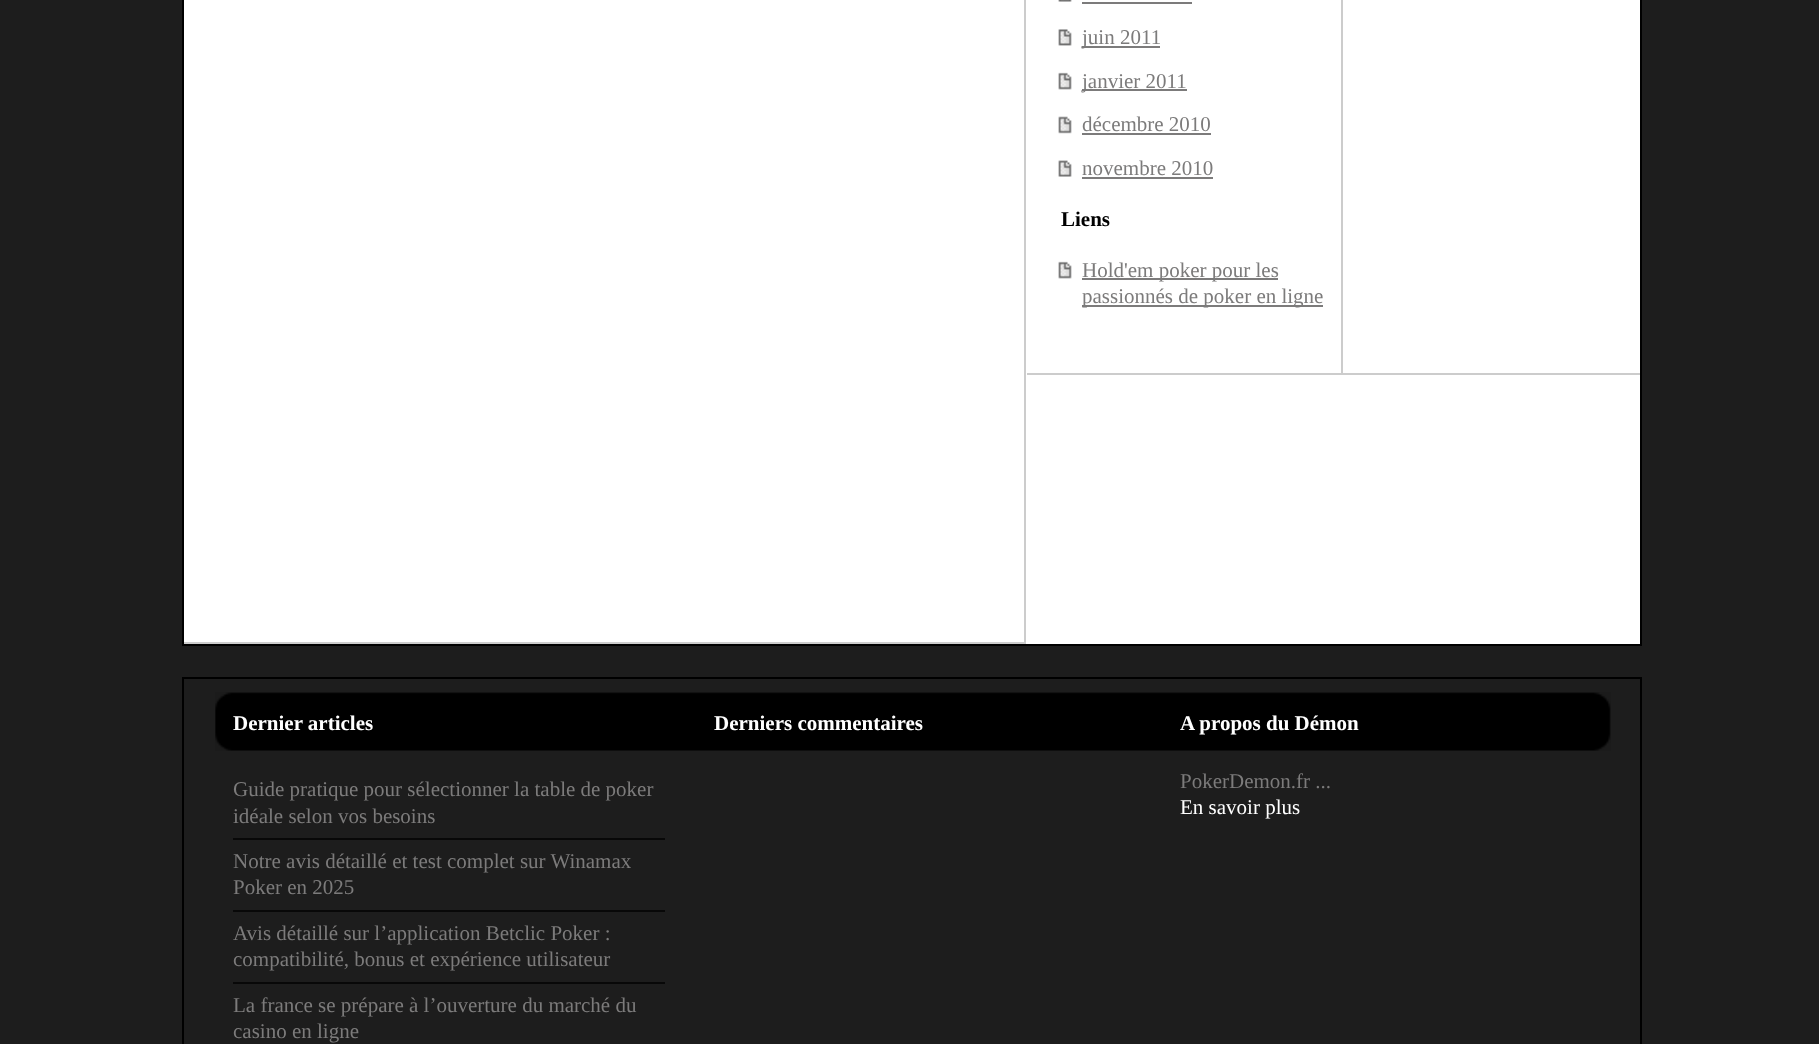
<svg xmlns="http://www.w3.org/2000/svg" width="1819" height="1044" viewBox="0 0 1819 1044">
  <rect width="100%" height="100%" fill="#1d1d1d"/>
  <path d="M183 -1h1458v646H183z" fill="#fff" stroke="#000" stroke-width="2"/>
  <path d="M1024 0h2v644H1024z" fill="#ccc"/>
  <path d="M184 642h842v2H184z" fill="#ccc"/>
  <path d="M1027 373h613v2H1027z" fill="#ccc"/>
  <path d="M1341 0h2v373H1341z" fill="#ccc"/>
  <image x="1058" y="0" width="14" height="2" href="img/1.png"/>
  <path d="M1082 2h110v2H1082z" fill="#7c7b7b"/>
  <image x="1058" y="29" width="14" height="17" href="img/2.png"/>
  <path d="M1082 46h78v2H1082z" fill="#7c7b7b"/>
  <image x="1058" y="72" width="14" height="18" href="img/3.png"/>
  <path d="M1082 89h105v2H1082z" fill="#7c7b7b"/>
  <image x="1058" y="116" width="14" height="18" href="img/4.png"/>
  <path d="M1082 133h129v2H1082z" fill="#7c7b7b"/>
  <image x="1058" y="160" width="14" height="17" href="img/5.png"/>
  <path d="M1082 177h131v2H1082z" fill="#7c7b7b"/>
  <image x="1058" y="261" width="14" height="18" href="img/3.png"/>
  <path d="M1082 278h196v2H1082z" fill="#7c7b7b"/>
  <path d="M1082 305h241v2H1082z" fill="#7c7b7b"/>
  <image x="215" y="692" width="1396" height="59" href="img/6.png"/>
  <path d="M183 678h1458v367H183z" fill="none" stroke="#000" stroke-width="2"/>
  <path d="M233 838h432v2H233z" fill="#080808"/>
  <path d="M233 910h432v2H233z" fill="#080808"/>
  <path d="M233 982h432v2H233z" fill="#080808"/>
  <g font-family="Liberation Serif" font-size="21" fill="#7c7b7b">
    <text x="1082" y="44">juin 2011</text>
    <text x="1082" y="88">janvier 2011</text>
    <text x="1082" y="131">décembre 2010</text>
    <text x="1082" y="175">novembre 2010</text>
  </g>
  <text x="1061" y="226" font-family="Liberation Serif" font-size="21" font-weight="bold" fill="#000">Liens</text>
  <g font-family="Liberation Serif" font-size="21" fill="#7c7b7b">
    <text x="1082" y="277">Hold'em poker pour les</text>
    <text x="1082" y="303">passionnés de poker en ligne</text>
  </g>
  <text x="233" y="730" font-family="Liberation Serif" font-size="21" font-weight="bold" fill="#fff">Dernier articles</text>
  <g font-family="Liberation Serif" font-size="21" fill="#7c7b7b">
    <text x="233" y="796">Guide pratique pour sélectionner la table de poker</text>
    <text x="233" y="823">idéale selon vos besoins</text>
    <text x="233" y="868">Notre avis détaillé et test complet sur Winamax</text>
    <text x="233" y="894">Poker en 2025</text>
    <text x="233" y="940">Avis détaillé sur l’application Betclic Poker :</text>
    <text x="233" y="966">compatibilité, bonus et expérience utilisateur</text>
    <text x="233" y="1012">La france se prépare à l’ouverture du marché du</text>
    <text x="233" y="1038">casino en ligne</text>
  </g>
  <g font-family="Liberation Serif" font-size="21" font-weight="bold" fill="#fff">
    <text x="714" y="730">Derniers commentaires</text>
    <text x="1180" y="730">A propos du Démon</text>
  </g>
  <text x="1180" y="788" font-family="Liberation Serif" font-size="21" fill="#7c7b7b">PokerDemon.fr ...</text>
  <text x="1180" y="814" font-family="Liberation Serif" font-size="21" fill="#fff">En savoir plus</text>
</svg>
